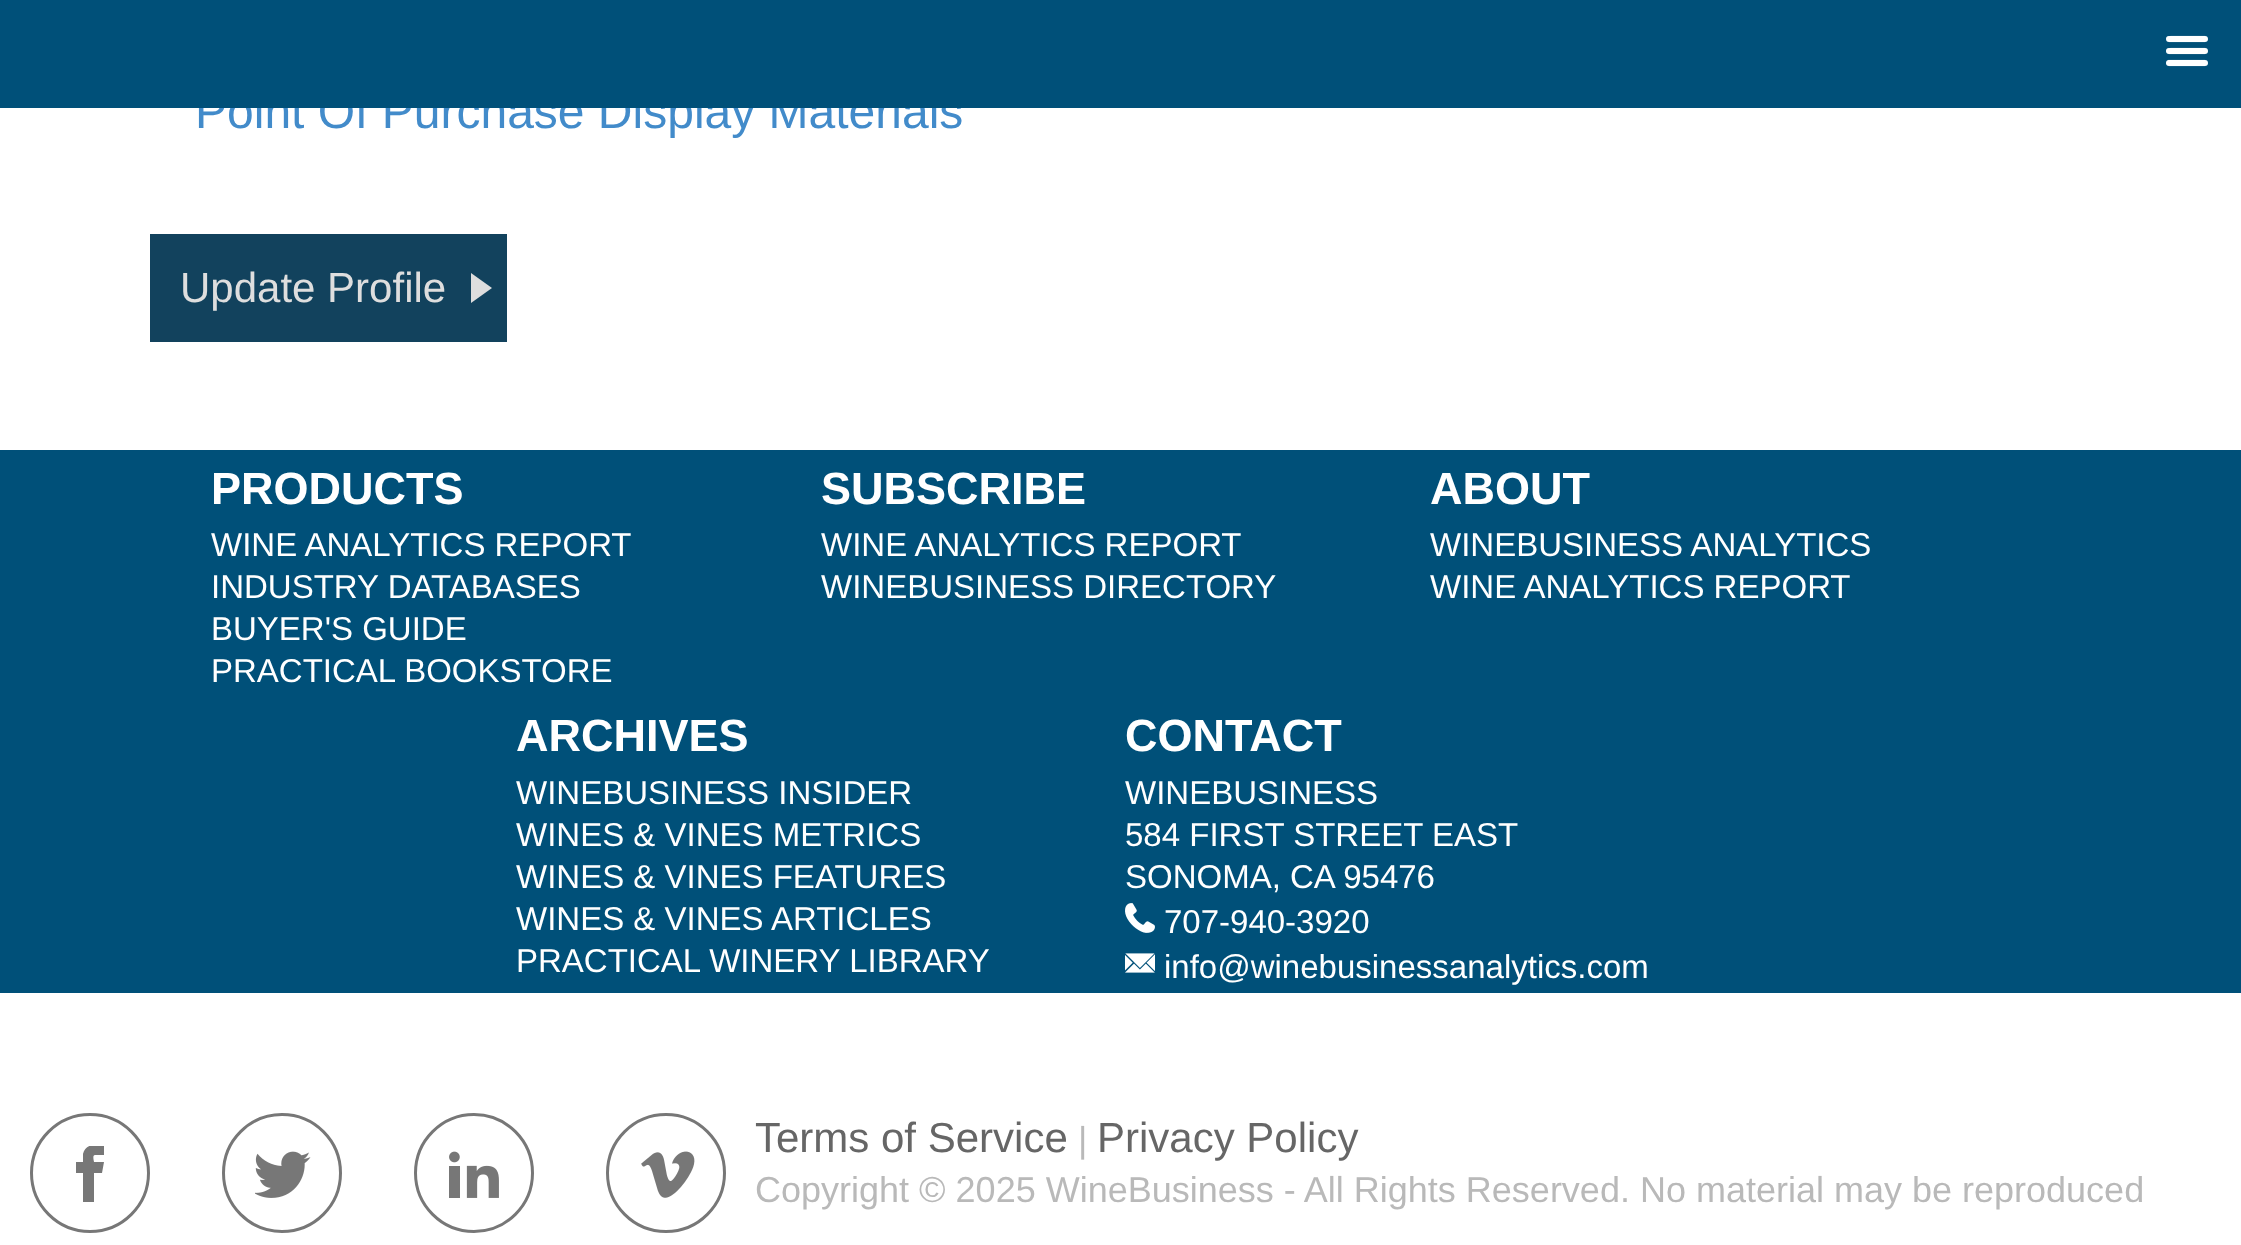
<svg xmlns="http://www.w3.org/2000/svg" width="2241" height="1245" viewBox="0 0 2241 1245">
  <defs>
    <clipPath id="clip1"><path d="M63 1146h57v57H63z"/></clipPath>
  </defs>
  <rect width="100%" height="100%" fill="#fff"/>
  <path d="M150 234h357v108H150z" fill="#12425d"/>
  <path d="M471 303V273L492 288Z" fill="#dedede"/>
  <path d="M0 450h2241v543H0z" fill="#005079"/>
  <image x="1125" y="903" width="30" height="30" href="img/2.png"/>
  <image x="1125" y="953" width="30" height="20" href="img/3.png"/>
  <circle cx="90" cy="1173" r="58.5" fill="none" stroke="#777" stroke-width="3"/>
  <g clip-path="url(#clip1)">
    <path d="M95 1155H104V1144C96 1144 85 1144 83 1154V1162H76V1173H83V1202H94V1173H102L104 1162H94C94 1161 92 1155 95 1155Z" fill="#777"/>
  </g>
  <circle cx="282" cy="1173" r="58.5" fill="none" stroke="#777" stroke-width="3"/>
  <image x="255" y="1151" width="56" height="47" href="img/4.png"/>
  <circle cx="474" cy="1173" r="58.5" fill="none" stroke="#777" stroke-width="3"/>
  <image x="449" y="1151" width="50" height="47" href="img/5.png"/>
  <circle cx="666" cy="1173" r="58.5" fill="none" stroke="#777" stroke-width="3"/>
  <image x="641" y="1151" width="54" height="47" href="img/6.png"/>
  <text x="195" y="128" font-family="Liberation Sans" font-size="48" fill="#428bca">Point Of Purchase Display Materials</text>
  <path d="M0 0h2241v108H0z" fill="#005079"/>
  <image x="2166" y="35" width="42" height="32" href="img/1.png"/>
  <text x="180" y="302" font-family="Liberation Sans" font-size="42" fill="#dedede">Update Profile</text>
  <text x="211" y="504" font-family="Liberation Sans" font-size="45" font-weight="bold" fill="#fff">PRODUCTS</text>
  <g font-family="Liberation Sans" font-size="33" fill="#fff">
    <text x="211" y="556">WINE ANALYTICS REPORT</text>
    <text x="211" y="598">INDUSTRY DATABASES</text>
    <text x="211" y="640">BUYER'S GUIDE</text>
    <text x="211" y="682">PRACTICAL BOOKSTORE</text>
  </g>
  <text x="821" y="504" font-family="Liberation Sans" font-size="45" font-weight="bold" fill="#fff">SUBSCRIBE</text>
  <g font-family="Liberation Sans" font-size="33" fill="#fff">
    <text x="821" y="556">WINE ANALYTICS REPORT</text>
    <text x="821" y="598">WINEBUSINESS DIRECTORY</text>
  </g>
  <text x="1430" y="504" font-family="Liberation Sans" font-size="45" font-weight="bold" fill="#fff">ABOUT</text>
  <g font-family="Liberation Sans" font-size="33" fill="#fff">
    <text x="1430" y="556">WINEBUSINESS ANALYTICS</text>
    <text x="1430" y="598">WINE ANALYTICS REPORT</text>
  </g>
  <text x="516" y="751" font-family="Liberation Sans" font-size="45" font-weight="bold" fill="#fff">ARCHIVES</text>
  <g font-family="Liberation Sans" font-size="33" fill="#fff">
    <text x="516" y="804">WINEBUSINESS INSIDER</text>
    <text x="516" y="846">WINES &amp; VINES METRICS</text>
    <text x="516" y="888">WINES &amp; VINES FEATURES</text>
    <text x="516" y="930">WINES &amp; VINES ARTICLES</text>
    <text x="516" y="972">PRACTICAL WINERY LIBRARY</text>
  </g>
  <text x="1125" y="751" font-family="Liberation Sans" font-size="45" font-weight="bold" fill="#fff">CONTACT</text>
  <g font-family="Liberation Sans" font-size="33" fill="#fff">
    <text x="1125" y="804">WINEBUSINESS</text>
    <text x="1125" y="846">584 FIRST STREET EAST</text>
    <text x="1125" y="888">SONOMA, CA 95476</text>
    <text x="1164" y="933">707-940-3920</text>
    <text x="1164" y="978">info@winebusinessanalytics.com</text>
  </g>
  <text x="755" y="1152" font-family="Liberation Sans" font-size="42" fill="#666">Terms of Service</text>
  <text x="1078" y="1152" font-family="Liberation Sans" font-size="36" fill="#b9b9b9">|</text>
  <text x="1097" y="1152" font-family="Liberation Sans" font-size="42" fill="#666">Privacy Policy</text>
  <text x="755" y="1202" font-family="Liberation Sans" font-size="36" fill="#b9b9b9">Copyright © 2025 WineBusiness - All Rights Reserved. No material may be reproduced</text>
</svg>
